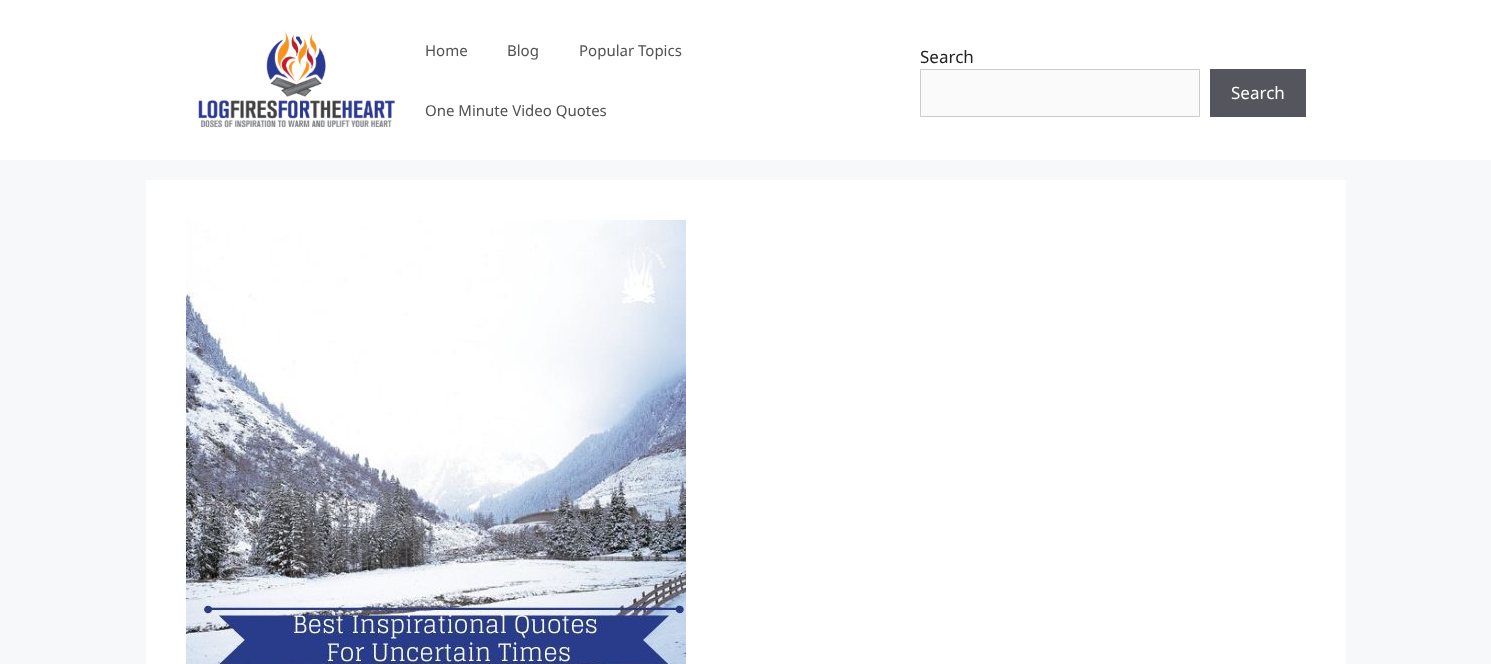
<svg xmlns="http://www.w3.org/2000/svg" width="1491" height="664" viewBox="0 0 1491 664">
  <rect width="100%" height="100%" fill="#f7f8f9"/>
  <path d="M0 0h1491v160H0z" fill="#fff"/>
  <image x="198" y="31" width="197" height="97" href="img/1.png"/>
  <path d="M920.5 69.5h279v47H920.5z" fill="#fafafa" stroke="#ccc"/>
  <path d="M1210 69h96v48H1210z" fill="#55555e"/>
  <path d="M146 180h1200v484H146z" fill="#fff"/>
  <image x="186" y="220" width="500" height="444" href="img/2.png"/>
  <g font-family="Noto Sans" font-size="15" fill="#515151">
    <text x="425" y="56">Home</text>
    <text x="507" y="56">Blog</text>
    <text x="579" y="56">Popular Topics</text>
    <text x="425" y="116">One Minute Video Quotes</text>
  </g>
  <text x="920" y="63" font-family="Noto Sans" font-size="17" fill="#222">Search</text>
  <text x="1231" y="99" font-family="Noto Sans" font-size="17" fill="#fff">Search</text>
</svg>
